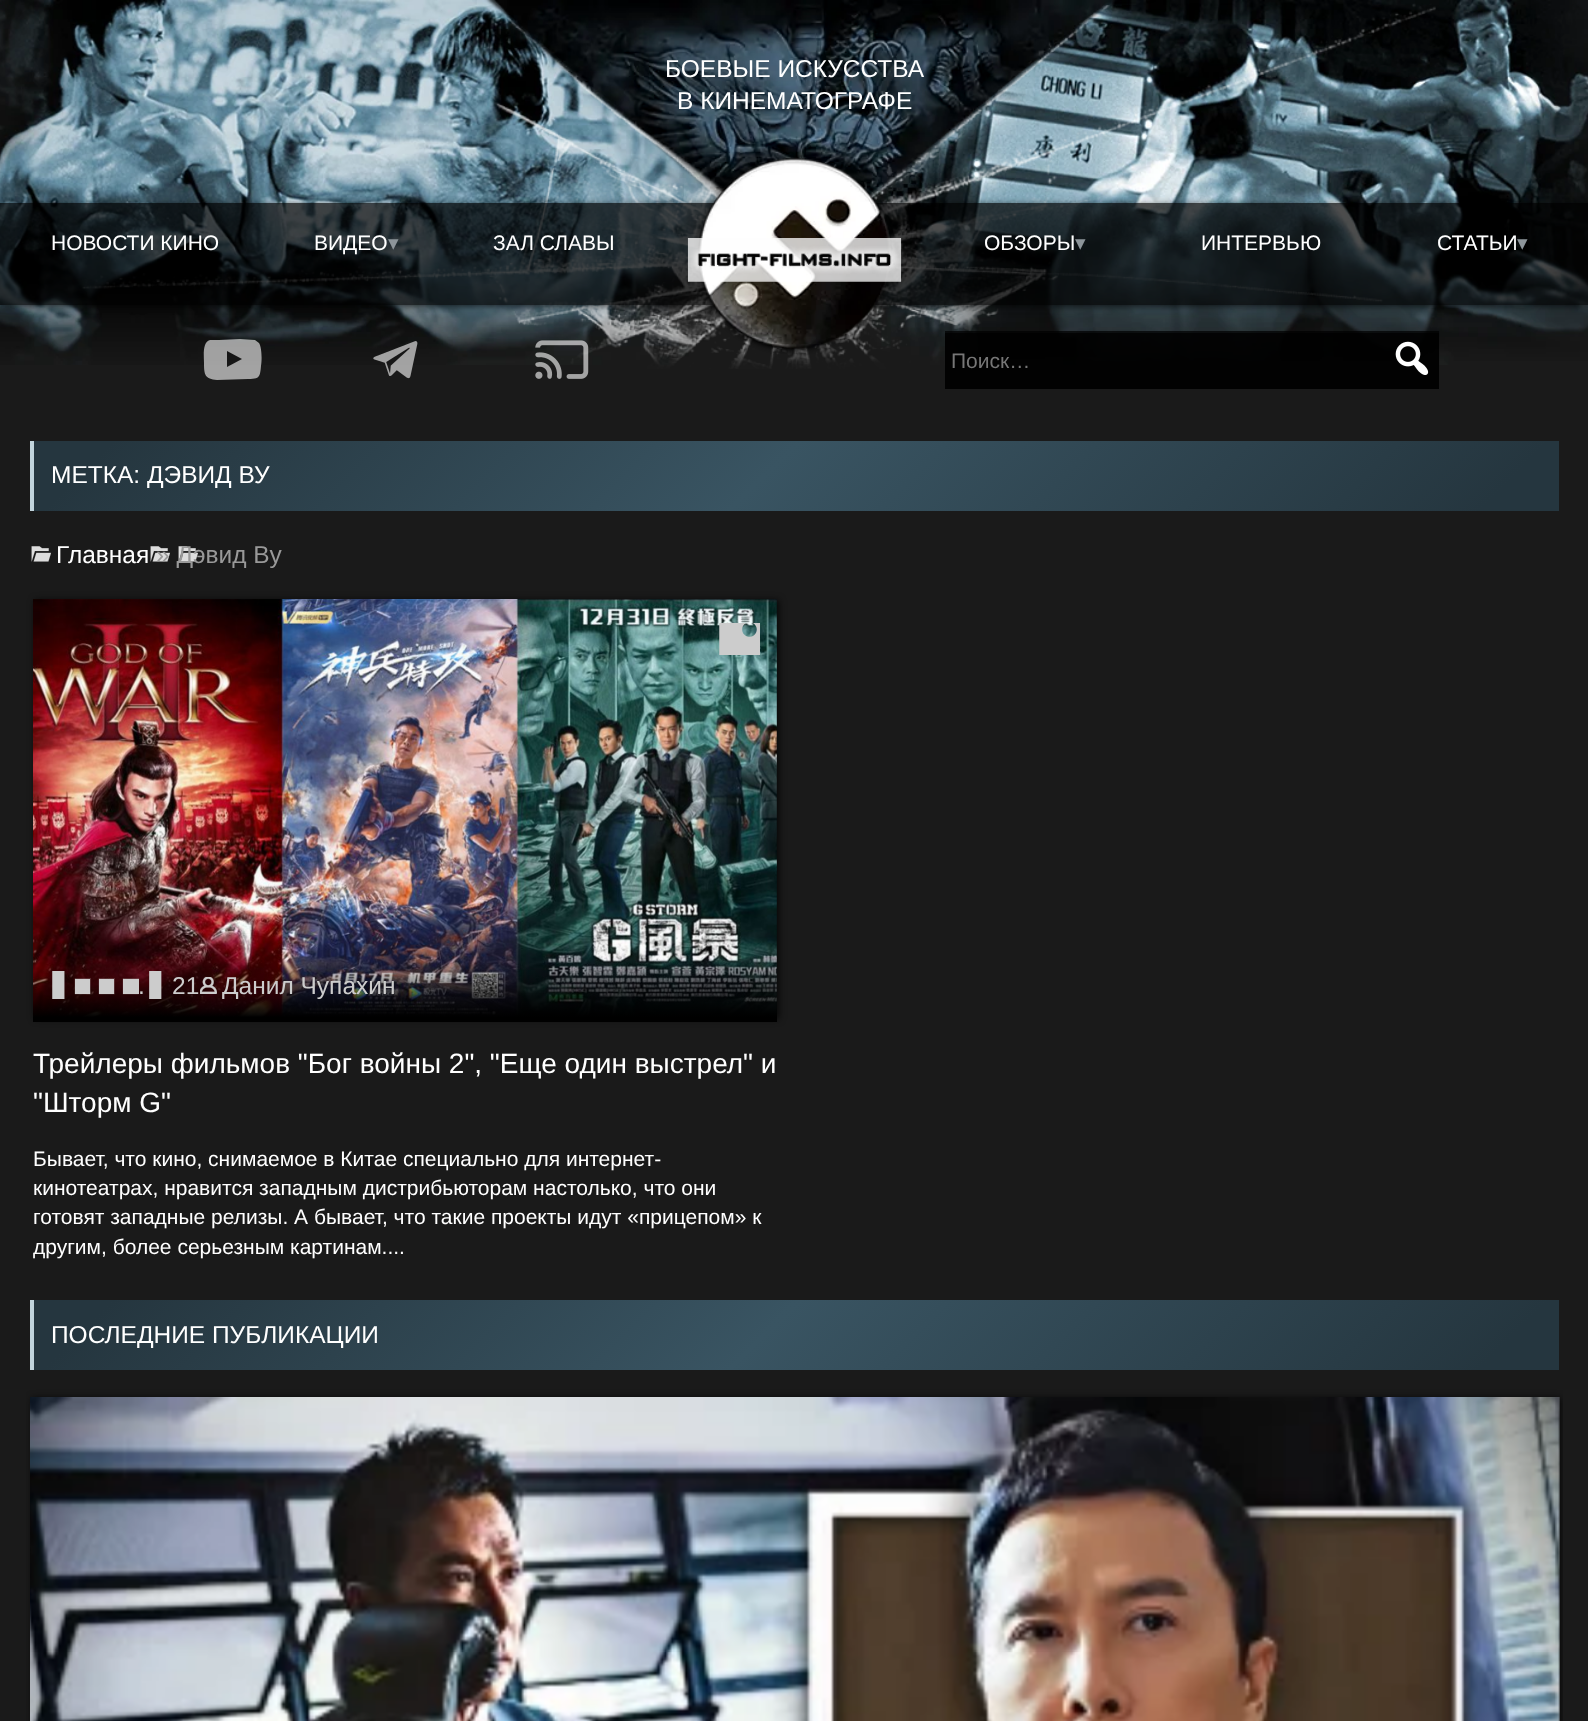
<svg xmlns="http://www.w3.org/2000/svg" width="1588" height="1721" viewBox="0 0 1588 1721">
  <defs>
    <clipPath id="clip1"><path d="M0 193H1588V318H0ZM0 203H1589V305H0Z" clip-rule="evenodd"/></clipPath>
    <linearGradient id="g1" gradientUnits="userSpaceOnUse" x1="397" y1="77" x2="1195" y2="875"><stop offset="0.05" stop-color="#25363f"/><stop offset="0.48" stop-color="#395462"/><stop offset="0.95" stop-color="#25363f"/></linearGradient>
    <linearGradient id="g2" gradientUnits="userSpaceOnUse" x1="405" y1="1022" x2="405" y2="961"><stop offset="0.08" stop-color="#000"/><stop offset="1" stop-color="#000" stop-opacity="0"/></linearGradient>
    <linearGradient id="g3" gradientUnits="userSpaceOnUse" x1="397" y1="936" x2="1195" y2="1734"><stop offset="0.05" stop-color="#25363f"/><stop offset="0.48" stop-color="#395462"/><stop offset="0.95" stop-color="#25363f"/></linearGradient>
    <clipPath id="clip2"><path d="M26 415h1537v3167H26z"/></clipPath>
  </defs>
  <rect width="100%" height="100%" fill="#1a1a1a"/>
  <image x="0" y="0" width="1588" height="365" href="img/1.png"/>
  <image x="82" y="0" width="1354" height="369" href="img/2.png"/>
  <g clip-path="url(#clip1)">
    <path d="M2 205h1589v101H2z" fill="#000000bf" filter="blur(3.5px)"/>
  </g>
  <path d="M0 203h1588v102H0z" fill="#000000b3"/>
  <image x="694" y="155" width="200" height="199" href="img/3.png"/>
  <image x="687" y="238" width="215" height="44" href="img/4.png"/>
  <path d="M227 367V351L242 359L227 367M259 343L255 340L240 339L219 340H210C202 342 204 357 204 363C204 375 205 379 217 380L248 379C259 379 260 378 261 366C262 360 262 348 259 343" fill="#ffffff99" fill-rule="evenodd"/>
  <image x="373" y="341" width="45" height="38" href="img/5.png"/>
  <image x="535" y="340" width="54" height="39" href="img/6.png"/>
  <path d="M945 331h494v58H945z" fill="#000000b3"/>
  <path d="M945 333h494v56H945z" fill="#000000b3"/>
  <image x="1395" y="341" width="34" height="34" href="img/7.png"/>
  <path d="M34 441h1525v70H34z" fill="url(#g1)"/>
  <path d="M30 441h4v70H30z" fill="#c1d4dc"/>
  <image x="31" y="546" width="167" height="16" href="img/8.png"/>
  <path d="M35 600h744v419H35z" fill="#000000bf" filter="blur(3.5px)"/>
  <image x="33" y="599" width="744" height="418" href="img/9.png"/>
  <image x="719" y="623" width="41" height="32" href="img/10.png"/>
  <path d="M33 962h744v60H33z" fill="url(#g2)"/>
  <image x="52" y="971" width="110" height="28" href="img/11.png"/>
  <image x="200" y="977" width="17" height="17" href="img/12.png"/>
  <path d="M34 1300h1525v70H34z" fill="url(#g3)"/>
  <path d="M30 1300h4v70H30z" fill="#c1d4dc"/>
  <g clip-path="url(#clip2)">
    <path d="M32 1398h1529v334H32z" fill="#000000bf" filter="blur(3.5px)"/>
  </g>
  <image x="30" y="1397" width="1530" height="324" href="img/13.png"/>
  <g font-family="Liberation Sans" font-size="24.5" fill="#fff">
    <text x="665" y="77">БОЕВЫЕ ИСКУССТВА</text>
    <text x="677" y="109">В КИНЕМАТОГРАФЕ</text>
  </g>
  <g font-family="Liberation Sans" font-size="21" fill="#fff">
    <text x="51" y="250">НОВОСТИ КИНО</text>
    <text x="314" y="250">ВИДЕО</text>
  </g>
  <text x="388" y="250" font-family="DejaVu Sans" font-size="21" fill="#8d959a">▾</text>
  <g font-family="Liberation Sans" font-size="21" fill="#fff">
    <text x="493" y="250">ЗАЛ СЛАВЫ</text>
    <text x="984" y="250">ОБЗОРЫ</text>
  </g>
  <text x="1075" y="250" font-family="DejaVu Sans" font-size="21" fill="#8d959a">▾</text>
  <g font-family="Liberation Sans" font-size="21" fill="#fff">
    <text x="1201" y="250">ИНТЕРВЬЮ</text>
    <text x="1437" y="250">СТАТЬИ</text>
  </g>
  <text x="1517" y="250" font-family="DejaVu Sans" font-size="21" fill="#8d959a">▾</text>
  <text x="951" y="368" font-family="Liberation Sans" font-size="21" fill="#767676">Поиск…</text>
  <g font-family="Liberation Sans" font-size="24.5" fill="#fff">
    <text x="51" y="483">МЕТКА: ДЭВИД ВУ</text>
    <text x="56" y="563">Главная</text>
  </g>
  <text x="156" y="563" font-family="Liberation Sans" font-size="24.5" fill="#999">» Дэвид Ву</text>
  <g font-family="Liberation Sans" font-size="24.5" fill="#ccc">
    <text x="172" y="994">21</text>
    <text x="222" y="994">Данил Чупахин</text>
    <text x="138" y="994">.</text>
  </g>
  <g font-family="Liberation Sans" font-size="28" fill="#fff">
    <text x="33" y="1073">Трейлеры фильмов "Бог войны 2", "Еще один выстрел" и</text>
    <text x="33" y="1112">"Шторм G"</text>
  </g>
  <g font-family="Liberation Sans" font-size="21" fill="#fff">
    <text x="33" y="1166">Бывает, что кино, снимаемое в Китае специально для интернет-</text>
    <text x="33" y="1195">кинотеатрах, нравится западным дистрибьюторам настолько, что они</text>
    <text x="33" y="1224">готовят западные релизы. А бывает, что такие проекты идут «прицепом» к</text>
    <text x="33" y="1254">другим, более серьезным картинам....</text>
  </g>
  <text x="51" y="1343" font-family="Liberation Sans" font-size="24.5" fill="#fff">ПОСЛЕДНИЕ ПУБЛИКАЦИИ</text>
</svg>
